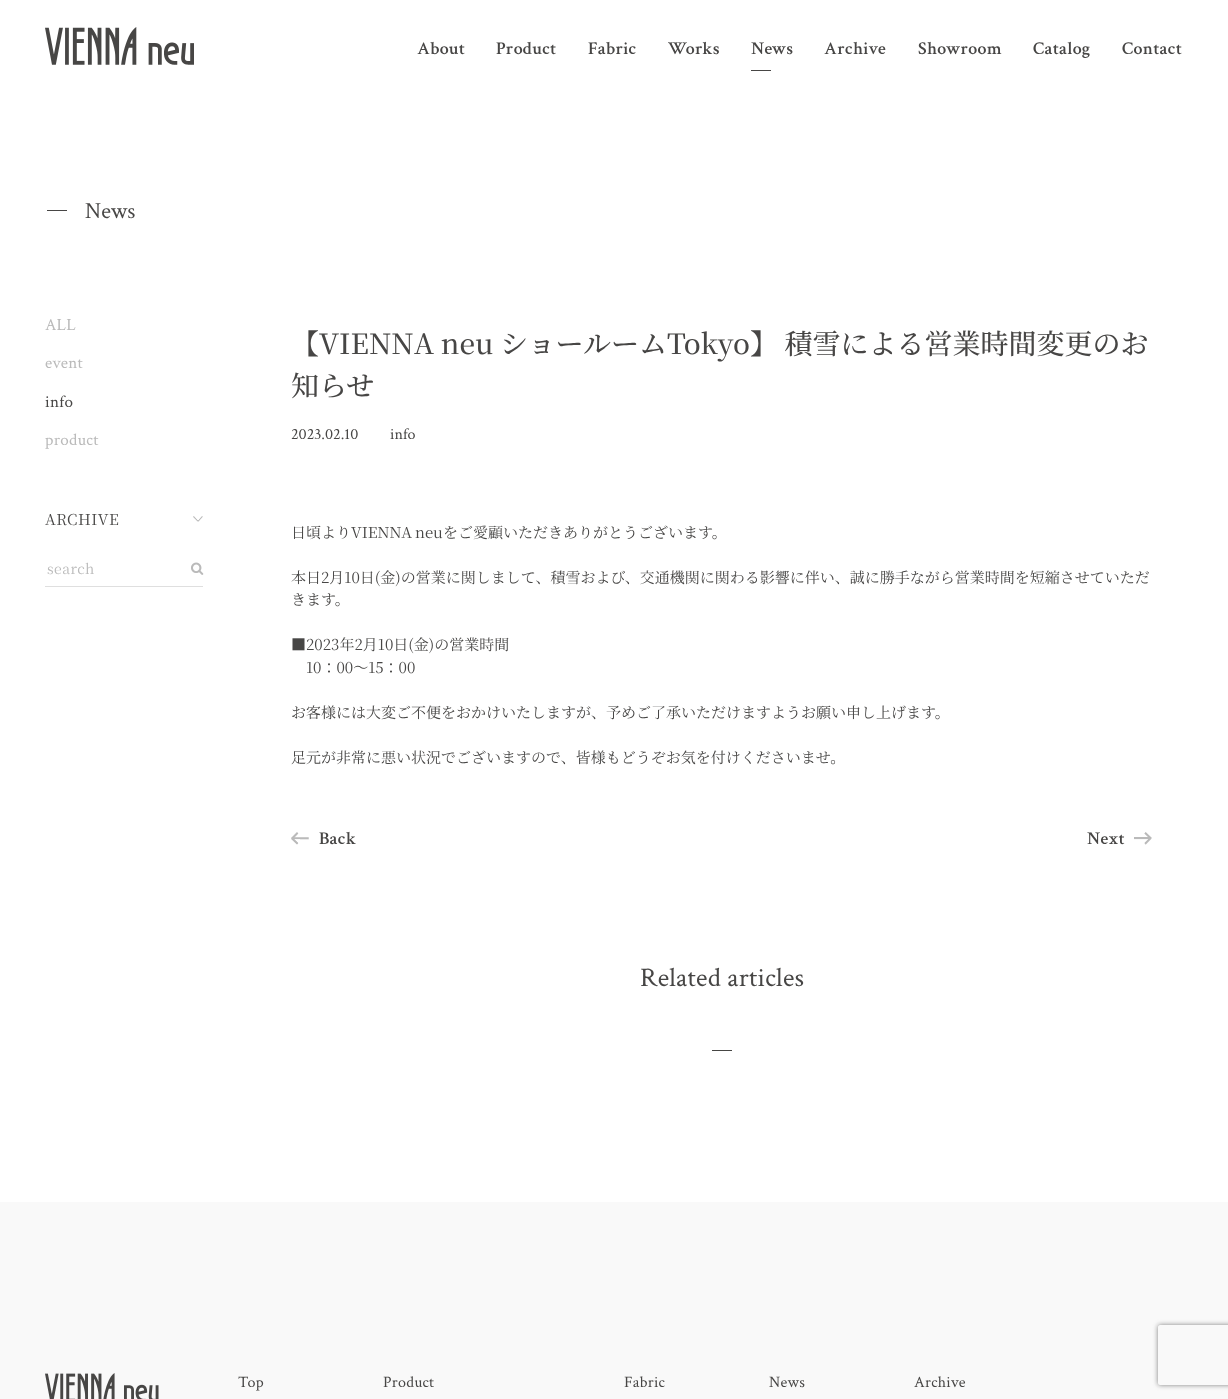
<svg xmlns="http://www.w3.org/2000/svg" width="1228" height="1399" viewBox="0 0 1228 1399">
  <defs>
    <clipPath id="clip1"><path d="M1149 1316H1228V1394H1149ZM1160 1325H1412C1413 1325 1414 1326 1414 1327V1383C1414 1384 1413 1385 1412 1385H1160C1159 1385 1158 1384 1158 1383V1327C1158 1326 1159 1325 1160 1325Z" clip-rule="evenodd"/></clipPath>
  </defs>
  <rect width="100%" height="100%" fill="#fff"/>
  <image x="45" y="27" width="149" height="38" href="img/1.png"/>
  <path d="M751 70h20v1H751z" fill="#474645"/>
  <path d="M47 210h20v1H47z" fill="#474645"/>
  <image x="193" y="516" width="10" height="6" href="img/2.png"/>
  <path d="M45 586h158v1H45z" fill="#dfdfdf"/>
  <image x="191" y="562" width="13" height="13" href="img/3.png"/>
  <image x="291" y="832" width="18" height="13" href="img/4.png"/>
  <image x="1134" y="832" width="18" height="13" href="img/5.png"/>
  <path d="M712 1050h20v1H712z" fill="#464644"/>
  <path d="M0 1202h1228v197H0z" fill="#f9f9f9"/>
  <image x="45" y="1373" width="114" height="26" href="img/6.png"/>
  <g clip-path="url(#clip1)">
    <rect x="1158" y="1325" width="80" height="60" rx="2" fill="#808080" filter="blur(2.5px)"/>
  </g>
  <g font-family="Crimson Text" font-size="18" font-weight="600" letter-spacing="0.25" fill="#474645">
    <text x="417" y="54">About</text>
    <text x="496" y="54">Product</text>
    <text x="588" y="54">Fabric</text>
    <text x="668" y="54">Works</text>
    <text x="751" y="54">News</text>
    <text x="824" y="54">Archive</text>
    <text x="918" y="54">Showroom</text>
    <text x="1033" y="54">Catalog</text>
    <text x="1122" y="54">Contact</text>
  </g>
  <text x="85" y="218" font-family="Crimson Text" font-size="23" fill="#474645">News</text>
  <g font-family="Crimson Text" font-size="17" letter-spacing="0.25" fill="#bababa">
    <text x="45" y="330">ALL</text>
    <text x="45" y="368">event</text>
  </g>
  <text x="45" y="407" font-family="Crimson Text" font-size="17" letter-spacing="0.25" fill="#474645">info</text>
  <text x="45" y="445" font-family="Crimson Text" font-size="17" letter-spacing="0.25" fill="#bababa">product</text>
  <text x="45" y="525" font-family="Noto Serif JP" font-size="15" letter-spacing="0.5" fill="#474645">ARCHIVE</text>
  <text x="47" y="574" font-family="Noto Serif JP" font-size="14" letter-spacing="0.5" fill="#bababa">search</text>
  <g font-family="Noto Serif JP" font-size="28" font-weight="500" fill="#474645">
    <text x="291" y="354" word-spacing="-0.5">【VIENNA neu ショールームTokyo】 積雪による営業時間変更のお</text>
    <text x="291" y="396">知らせ</text>
  </g>
  <g font-family="Crimson Text" font-size="16" fill="#474645">
    <text x="291" y="439">2023.02.10</text>
    <text x="390" y="439">info</text>
  </g>
  <g font-family="Noto Serif JP" font-size="15" fill="#474645">
    <text x="291" y="538" word-spacing="-1">日頃よりVIENNA neuをご愛顧いただきありがとうございます。</text>
    <text x="291" y="583">本日2月10日(金)の営業に関しまして、積雪および、交通機関に関わる影響に伴い、誠に勝手ながら営業時間を短縮させていただ</text>
    <text x="291" y="605">きます。</text>
    <text x="291" y="650">■2023年2月10日(金)の営業時間</text>
    <text x="306" y="673">10：00～15：00</text>
    <text x="291" y="718">お客様には大変ご不便をおかけいたしますが、予めご了承いただけますようお願い申し上げます。</text>
    <text x="291" y="763">足元が非常に悪い状況でございますので、皆様もどうぞお気を付けくださいませ。</text>
  </g>
  <g font-family="Crimson Text" font-size="18" font-weight="600" letter-spacing="0.25" fill="#474645">
    <text x="319" y="844">Back</text>
    <text x="1087" y="844">Next</text>
  </g>
  <text x="640" y="986" font-family="Crimson Text" font-size="27" letter-spacing="0.25" fill="#474645">Related articles</text>
  <g font-family="Crimson Text" font-size="16" letter-spacing="0.25" fill="#474645">
    <text x="238" y="1387">Top</text>
    <text x="383" y="1387">Product</text>
    <text x="624" y="1387">Fabric</text>
    <text x="769" y="1387">News</text>
    <text x="914" y="1387">Archive</text>
  </g>
</svg>
